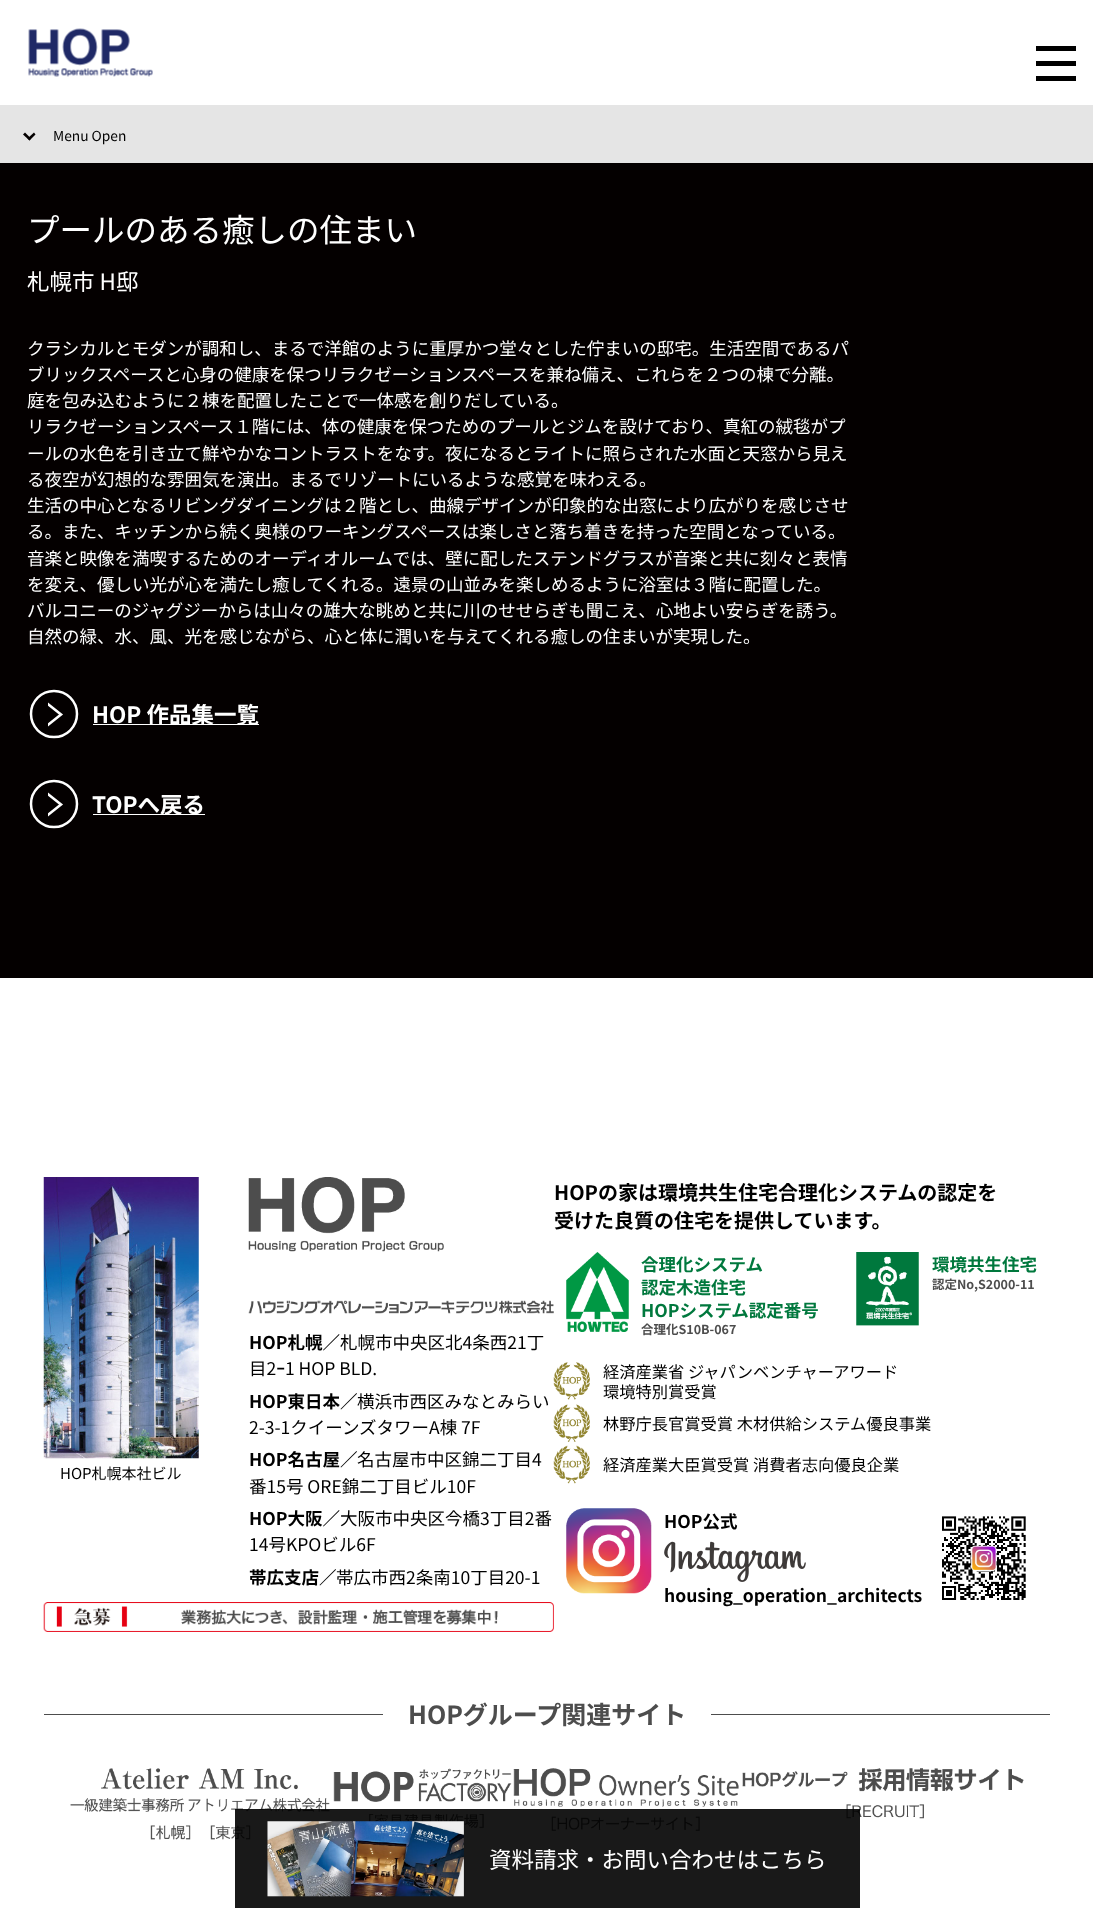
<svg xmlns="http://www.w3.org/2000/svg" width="1093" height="1908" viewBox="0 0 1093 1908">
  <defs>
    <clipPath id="clip1"><path d="M48 700h32v29H48z"/></clipPath>
    <clipPath id="clip2"><path d="M48 790h32v29H48z"/></clipPath>
  </defs>
  <rect width="100%" height="100%" fill="#fff"/>
  <image x="28" y="28" width="125" height="49" href="img/1.png"/>
  <path d="M1036 46h40v5H1036z" fill="#000"/>
  <path d="M1036 61h40v5H1036z" fill="#000"/>
  <path d="M1036 76h40v5H1036z" fill="#000"/>
  <path d="M0 105h1093v58H0z" fill="#e5e5e5"/>
  <path d="M35.5 134.5L29.5 140.5L27.5 138.5L34 132.5Z" fill="#040000"/>
  <path d="M31 138.5L29.5 140.5L23 134.5L25 132.5Z" fill="#040000"/>
  <path d="M0 163h1093v815H0z" fill="#040000"/>
  <g clip-path="url(#clip1)">
    <path d="M46 702.5L61 714.5L46 726.5" fill="none" stroke="#fff" stroke-width="2.6"/>
  </g>
  <circle cx="54" cy="714" r="23" fill="none" stroke="#fff" stroke-width="2.5"/>
  <path d="M93 724h166v1H93z" fill="#fff"/>
  <g clip-path="url(#clip2)">
    <path d="M46 792.5L61 804.5L46 816.5" fill="none" stroke="#fff" stroke-width="2.6"/>
  </g>
  <circle cx="54" cy="804" r="23" fill="none" stroke="#fff" stroke-width="2.5"/>
  <path d="M93 814h112v1H93z" fill="#fff"/>
  <image x="43" y="1177" width="156" height="282" href="img/2.png"/>
  <image x="248" y="1177" width="196" height="75" href="img/3.png"/>
  <image x="248" y="1300" width="306" height="14" href="img/4.png"/>
  <image x="43" y="1602" width="511" height="30" href="img/5.png"/>
  <image x="566" y="1252" width="63" height="80" href="img/6.png"/>
  <image x="856" y="1252" width="63" height="74" href="img/7.png"/>
  <image x="553" y="1362" width="37" height="38" href="img/8.png"/>
  <image x="553" y="1404" width="37" height="38" href="img/9.png"/>
  <image x="553" y="1445" width="37" height="39" href="img/10.png"/>
  <image x="566" y="1508" width="86" height="86" href="img/11.png"/>
  <image x="664" y="1541" width="142" height="41" href="img/12.png"/>
  <image x="942" y="1516" width="84" height="84" href="img/13.png"/>
  <path d="M44 1714h339v1H44z" fill="#4d4d4d"/>
  <path d="M711 1714h339v1H711z" fill="#4d4d4d"/>
  <image x="70" y="1768" width="260" height="72" href="img/14.png"/>
  <image x="333" y="1768" width="179" height="61" href="img/15.png"/>
  <image x="513" y="1768" width="226" height="63" href="img/16.png"/>
  <image x="742" y="1768" width="282" height="51" href="img/17.png"/>
  <path d="M235 1809h625v99H235z" fill="#000000e6"/>
  <image x="267" y="1821" width="197" height="76" href="img/18.png"/>
  <text x="53" y="141" font-family="Noto Sans JP" font-size="13.75" fill="#000">Menu Open</text>
  <text x="27" y="242" font-family="Noto Sans JP" font-size="32.5" fill="#fff">プールのある癒しの住まい</text>
  <text x="27" y="290" font-family="Noto Sans JP" font-size="22.5" fill="#fff">札幌市 H邸</text>
  <g font-family="Noto Sans JP" font-size="17.5" fill="#fff">
    <text x="27" y="355">クラシカルとモダンが調和し、まるで洋館のように重厚かつ堂々とした佇まいの邸宅。生活空間であるパ</text>
    <text x="27" y="381">ブリックスペースと心身の健康を保つリラクゼーションスペースを兼ね備え、これらを２つの棟で分離。</text>
    <text x="27" y="407">庭を包み込むように２棟を配置したことで一体感を創りだしている。</text>
    <text x="27" y="433">リラクゼーションスペース１階には、体の健康を保つためのプールとジムを設けており、真紅の絨毯がプ</text>
    <text x="27" y="460">ールの水色を引き立て鮮やかなコントラストをなす。夜になるとライトに照らされた水面と天窓から見え</text>
    <text x="27" y="486">る夜空が幻想的な雰囲気を演出。まるでリゾートにいるような感覚を味わえる。</text>
    <text x="27" y="512">生活の中心となるリビングダイニングは２階とし、曲線デザインが印象的な出窓により広がりを感じさせ</text>
    <text x="27" y="538">る。また、キッチンから続く奥様のワーキングスペースは楽しさと落ち着きを持った空間となっている。</text>
    <text x="27" y="565">音楽と映像を満喫するためのオーディオルームでは、壁に配したステンドグラスが音楽と共に刻々と表情</text>
    <text x="27" y="591">を変え、優しい光が心を満たし癒してくれる。遠景の山並みを楽しめるように浴室は３階に配置した。</text>
    <text x="27" y="617">バルコニーのジャグジーからは山々の雄大な眺めと共に川のせせらぎも聞こえ、心地よい安らぎを誘う。</text>
    <text x="27" y="643">自然の緑、水、風、光を感じながら、心と体に潤いを与えてくれる癒しの住まいが実現した。</text>
  </g>
  <g font-family="Noto Sans JP" font-size="22.5" font-weight="bold" fill="#fff">
    <text x="92" y="723">HOP 作品集一覧</text>
    <text x="92" y="813">TOPへ戻る</text>
  </g>
  <text x="60" y="1479" font-family="Noto Sans JP" font-size="15" fill="#000">HOP札幌本社ビル</text>
  <text x="249" y="1349" font-family="Noto Sans JP" font-size="17.5" font-weight="bold" fill="#000">HOP札幌／</text>
  <g font-family="Noto Sans JP" font-size="17.5" fill="#000">
    <text x="340" y="1349">札幌市中央区北4条西21丁</text>
    <text x="249" y="1375">目2ｰ1 HOP BLD.</text>
  </g>
  <text x="249" y="1408" font-family="Noto Sans JP" font-size="17.5" font-weight="bold" fill="#000">HOP東日本／</text>
  <g font-family="Noto Sans JP" font-size="17.5" fill="#000">
    <text x="357" y="1408">横浜市西区みなとみらい</text>
    <text x="249" y="1434">2-3-1クイーンズタワーA棟 7F</text>
  </g>
  <text x="249" y="1466" font-family="Noto Sans JP" font-size="17.5" font-weight="bold" fill="#000">HOP名古屋／</text>
  <g font-family="Noto Sans JP" font-size="17.5" fill="#000">
    <text x="357" y="1466">名古屋市中区錦二丁目4</text>
    <text x="249" y="1493">番15号 ORE錦二丁目ビル10F</text>
  </g>
  <text x="249" y="1525" font-family="Noto Sans JP" font-size="17.5" font-weight="bold" fill="#000">HOP大阪／</text>
  <g font-family="Noto Sans JP" font-size="17.5" fill="#000">
    <text x="340" y="1525">大阪市中央区今橋3丁目2番</text>
    <text x="249" y="1551">14号KPOビル6F</text>
  </g>
  <text x="249" y="1584" font-family="Noto Sans JP" font-size="17.5" font-weight="bold" fill="#000">帯広支店／</text>
  <text x="336" y="1584" font-family="Noto Sans JP" font-size="17.5" fill="#000">帯広市西2条南10丁目20-1</text>
  <g font-family="Noto Sans JP" font-size="20" font-weight="bold" fill="#000">
    <text x="554" y="1200">HOPの家は環境共生住宅合理化システムの認定を</text>
    <text x="554" y="1228">受けた良質の住宅を提供しています。</text>
  </g>
  <g font-family="Noto Sans JP" font-size="17.5" font-weight="bold" fill="#00783d">
    <text x="641" y="1271">合理化システム</text>
    <text x="641" y="1294">認定木造住宅</text>
    <text x="641" y="1317">HOPシステム認定番号</text>
  </g>
  <text x="641" y="1334" font-family="Noto Sans JP" font-size="12.5" font-weight="bold" fill="#4d4d4d">合理化S10B-067</text>
  <text x="932" y="1271" font-family="Noto Sans JP" font-size="17.5" font-weight="bold" fill="#00783d">環境共生住宅</text>
  <text x="932" y="1289" font-family="Noto Sans JP" font-size="12.5" font-weight="bold" fill="#4d4d4d">認定No,S2000-11</text>
  <g font-family="Noto Sans JP" font-size="16.25" fill="#000">
    <text x="603" y="1378">経済産業省 ジャパンベンチャーアワード</text>
    <text x="603" y="1398">環境特別賞受賞</text>
    <text x="603" y="1430">林野庁長官賞受賞 木材供給システム優良事業</text>
    <text x="603" y="1471">経済産業大臣賞受賞 消費者志向優良企業</text>
  </g>
  <g font-family="Noto Sans JP" font-size="17.5" font-weight="bold" fill="#000">
    <text x="664" y="1528">HOP公式</text>
    <text x="664" y="1602">housing_operation_architects</text>
  </g>
  <text x="408" y="1724" font-family="Noto Sans JP" font-size="25" font-weight="bold" fill="#4d4d4d">HOPグループ関連サイト</text>
  <text x="489" y="1868" font-family="Noto Sans JP" font-size="22.5" fill="#fff">資料請求・お問い合わせはこちら</text>
</svg>
